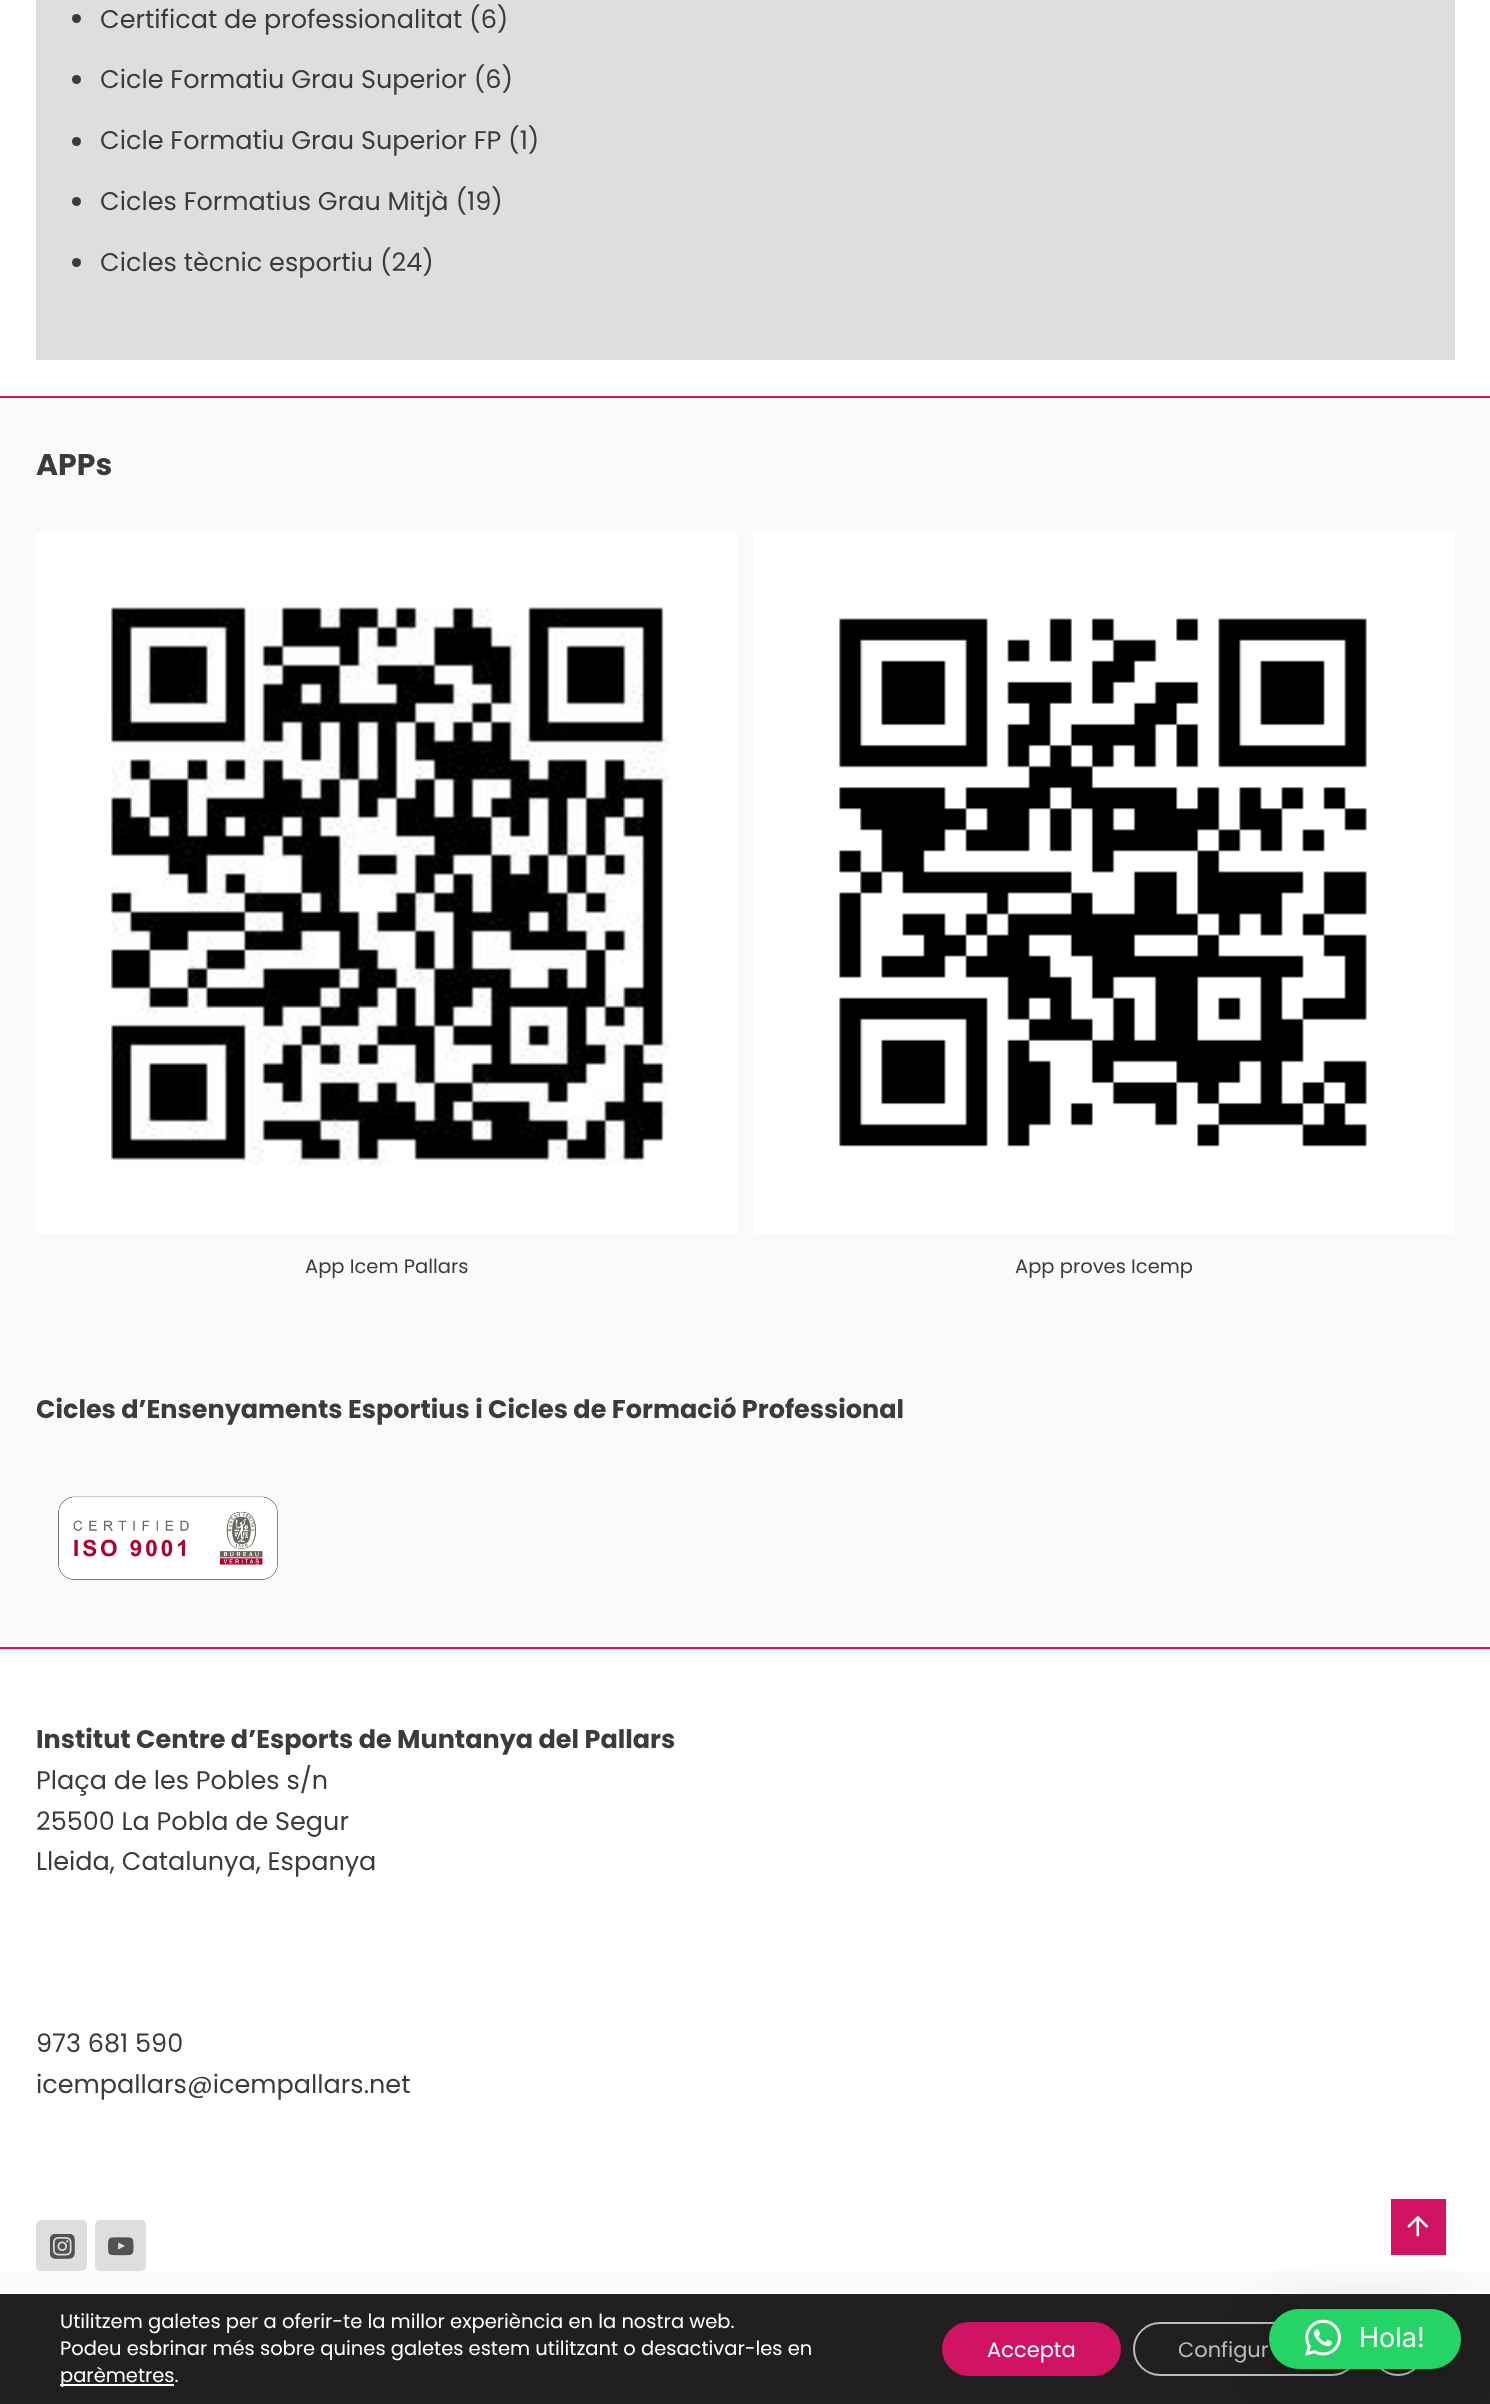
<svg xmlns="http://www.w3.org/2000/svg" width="1490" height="2404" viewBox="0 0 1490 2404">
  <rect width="100%" height="100%" fill="#fff"/>
  <path d="M36 0h1419v360H36z" fill="#dedede"/>
  <circle cx="76.5" cy="18.5" r="4.5" fill="#3b3b3b"/>
  <circle cx="76.5" cy="79.5" r="4.5" fill="#3b3b3b"/>
  <circle cx="76.5" cy="141.5" r="4.5" fill="#3b3b3b"/>
  <circle cx="76.5" cy="201.5" r="4.5" fill="#3b3b3b"/>
  <circle cx="76.5" cy="262.5" r="4.5" fill="#3b3b3b"/>
  <path d="M0 398h1490v1249H0z" fill="#fafafa"/>
  <path d="M0 396h1490v2H0z" fill="#d11363"/>
  <image x="36" y="533" width="702" height="701" href="img/1.png"/>
  <image x="753" y="533" width="702" height="701" href="img/2.png"/>
  <image x="58" y="1496" width="220" height="85" href="img/3.png"/>
  <path d="M0 1647h1490v2H0z" fill="#d11363"/>
  <rect x="36" y="2220" width="51" height="51" rx="5" fill="#dedede"/>
  <image x="50" y="2234" width="25" height="25" href="img/4.png"/>
  <rect x="95" y="2220" width="51" height="51" rx="5" fill="#dedede"/>
  <image x="108" y="2237" width="26" height="19" href="img/5.png"/>
  <path d="M0 2271h1490v21H0z" fill="#fafafa"/>
  <path d="M1391 2199h55v56H1391z" fill="#d11363"/>
  <image x="1407" y="2216" width="21" height="21" href="img/6.png"/>
  <path d="M0 2294h1490v110H0z" fill="#202020"/>
  <path d="M60 2384h114v2H60z" fill="#fff"/>
  <rect x="942" y="2322" width="179" height="54" rx="27" fill="#d11363"/>
  <rect x="1134" y="2323" width="224" height="52" rx="26" fill="none" stroke="#bcbcbc" stroke-width="2"/>
  <circle cx="1398" cy="2349" r="26" fill="none" stroke="#bcbcbc" stroke-width="2"/>
  <rect x="1269" y="2312" width="192" height="60" rx="30" fill="#00000029" filter="blur(24px)"/>
  <rect x="1269" y="2310" width="192" height="60" rx="30" fill="#0000000f" filter="blur(4.5px)"/>
  <rect x="1269" y="2309" width="192" height="60" rx="30" fill="#25d366"/>
  <image x="1305" y="2319" width="36" height="37" href="img/7.png"/>
  <g font-family="Poppins" font-size="25.5" fill="#3b3b3b">
    <text x="100" y="28">Certificat de professionalitat (6)</text>
    <text x="100" y="88">Cicle Formatiu Grau Superior (6)</text>
    <text x="100" y="149">Cicle Formatiu Grau Superior FP (1)</text>
    <text x="100" y="210">Cicles Formatius Grau Mitjà (19)</text>
    <text x="100" y="271">Cicles tècnic esportiu (24)</text>
  </g>
  <text x="36" y="475" font-family="Poppins" font-size="30" font-weight="bold" fill="#3b3b3b">APPs</text>
  <g font-family="Poppins" font-size="19.5" fill="#3b3b3b">
    <text x="305" y="1273">App Icem Pallars</text>
    <text x="1015" y="1273">App proves Icemp</text>
  </g>
  <g font-family="Poppins" font-size="25.5" font-weight="bold" fill="#3b3b3b">
    <text x="36" y="1418">Cicles d’Ensenyaments Esportius i Cicles de Formació Professional</text>
    <text x="36" y="1748">Institut Centre d’Esports de Muntanya del Pallars</text>
  </g>
  <g font-family="Poppins" font-size="25.5" fill="#3b3b3b">
    <text x="36" y="1789">Plaça de les Pobles s/n</text>
    <text x="36" y="1830">25500 La Pobla de Segur</text>
    <text x="36" y="1870">Lleida, Catalunya, Espanya</text>
    <text x="36" y="2052">973 681 590</text>
    <text x="36" y="2093">icempallars@icempallars.net</text>
  </g>
  <g font-family="Poppins" font-size="19.5" fill="#fff">
    <text x="60" y="2328">Utilitzem galetes per a oferir-te la millor experiència en la nostra web.</text>
    <text x="60" y="2355">Podeu esbrinar més sobre quines galetes estem utilitzant o desactivar-les en</text>
    <text x="60" y="2382">parèmetres.</text>
  </g>
  <text x="987" y="2357" font-family="Poppins" font-size="21" fill="#fff">Accepta</text>
  <text x="1178" y="2357" font-family="Poppins" font-size="21" fill="#bcbcbc">Configur</text>
  <text x="1359" y="2347" font-family="Inter" font-size="27" fill="#fff">Hola!</text>
</svg>
